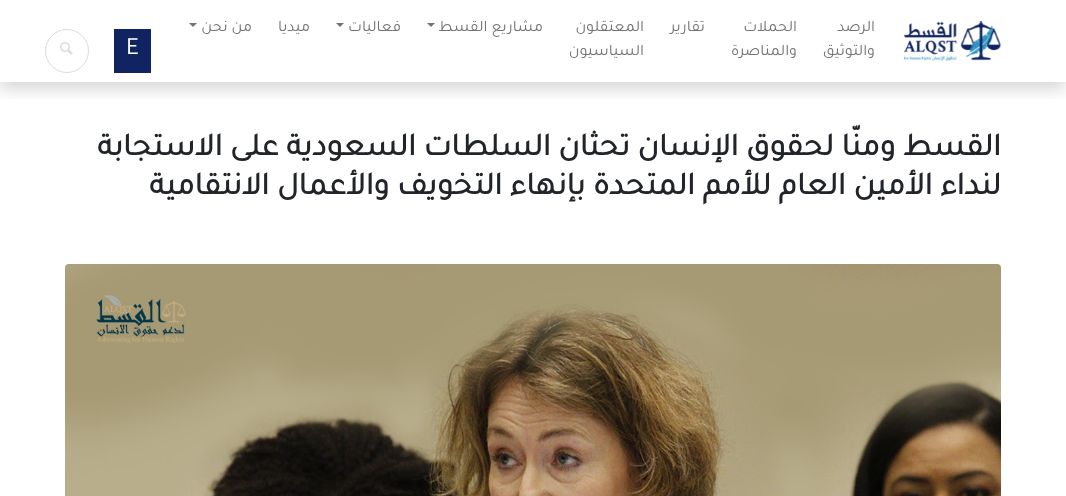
<svg xmlns="http://www.w3.org/2000/svg" width="1066" height="496" viewBox="0 0 1066 496">
  <defs>
    <clipPath id="clip1"><path d="M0 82h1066v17H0z"/></clipPath>
  </defs>
  <rect width="100%" height="100%" fill="#fff"/>
  <g clip-path="url(#clip1)">
    <path d="M0 8h1066v82H0z" fill="#00000026" filter="blur(8px)"/>
  </g>
  <image x="904" y="21" width="97" height="40" href="img/1.png"/>
  <path d="M427 23H435L431 27Z" fill="#737373"/>
  <path d="M336 23H344L340 27Z" fill="#737373"/>
  <path d="M189 23H197L193 27Z" fill="#737373"/>
  <path d="M114 29h37v44H114z" fill="#0f2460"/>
  <circle cx="67" cy="51" r="21.5" fill="none" stroke="#dadcde"/>
  <image x="60" y="42" width="13" height="13" href="img/2.png"/>
  <image x="65" y="264" width="936" height="232" href="img/3.png"/>
  <g font-family="Tajawal" font-size="16" direction="rtl" fill="#737373">
    <text x="875" y="31">الرصد</text>
    <text x="875" y="55">والتوثيق</text>
    <text x="797" y="31">الحملات</text>
    <text x="797" y="55">والمناصرة</text>
    <text x="705" y="31">تقارير</text>
    <text x="644" y="31">المعتقلون</text>
    <text x="644" y="55">السياسيون</text>
    <text x="543" y="31">مشاريع القسط</text>
    <text x="401" y="31">فعاليات</text>
    <text x="310" y="31">ميديا</text>
    <text x="252" y="31">من نحن</text>
  </g>
  <text x="126" y="54" font-family="Tajawal" font-size="25" fill="#fff">E</text>
  <g font-family="Tajawal" font-size="32" font-weight="bold" direction="rtl" fill="#212529">
    <text x="1001" y="155">القسط ومنّا لحقوق الإنسان تحثان السلطات السعودية على الاستجابة</text>
    <text x="1001" y="194">لنداء الأمين العام للأمم المتحدة بإنهاء التخويف والأعمال الانتقامية</text>
  </g>
</svg>
